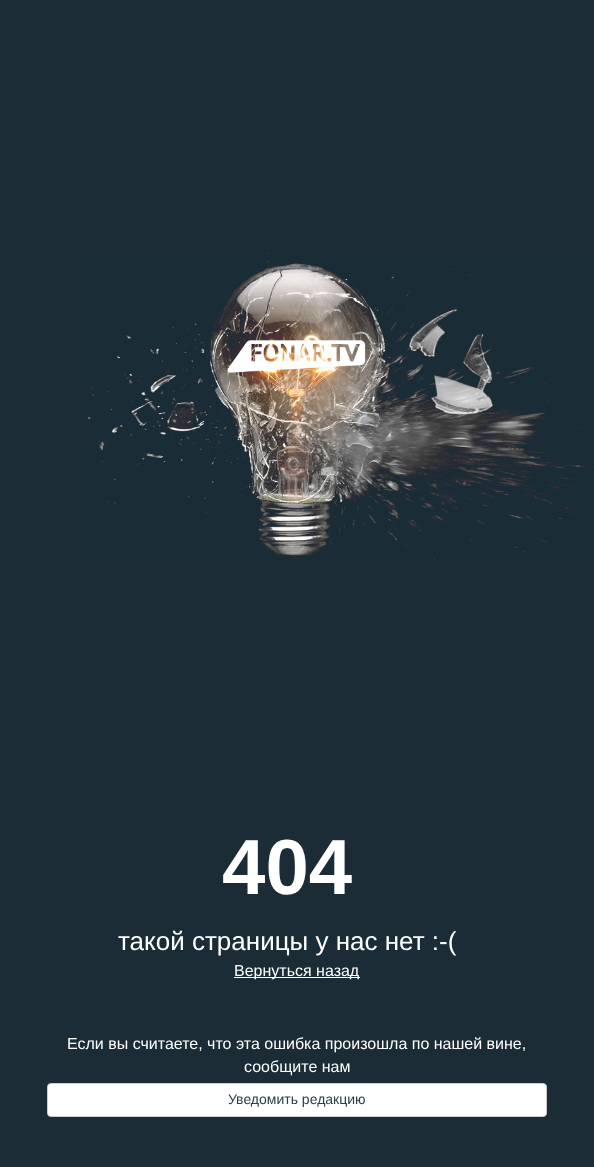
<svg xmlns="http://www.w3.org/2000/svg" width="594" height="1167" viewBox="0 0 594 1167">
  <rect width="100%" height="100%" fill="#1b2c36"/>
  <image x="87" y="252" width="507" height="308" href="img/1.png"/>
  <path d="M234 977h126v1H234z" fill="#fff"/>
  <rect x="47.5" y="1083.5" width="499" height="33" rx="3.5" fill="#fff" stroke="#ccc"/>
  <text x="222" y="894" font-family="Liberation Sans" font-size="78" font-weight="bold" fill="#fff">404</text>
  <text x="118" y="950" font-family="Liberation Sans" font-size="26" fill="#fff">такой страницы у нас нет :-(</text>
  <g font-family="Liberation Sans" font-size="16" fill="#fff">
    <text x="234" y="976">Вернуться назад</text>
    <text x="67" y="1049">Если вы считаете, что эта ошибка произошла по нашей вине,</text>
    <text x="244" y="1072">сообщите нам</text>
  </g>
  <text x="228" y="1104" font-family="Liberation Sans" font-size="14" fill="#28414d">Уведомить редакцию</text>
</svg>
